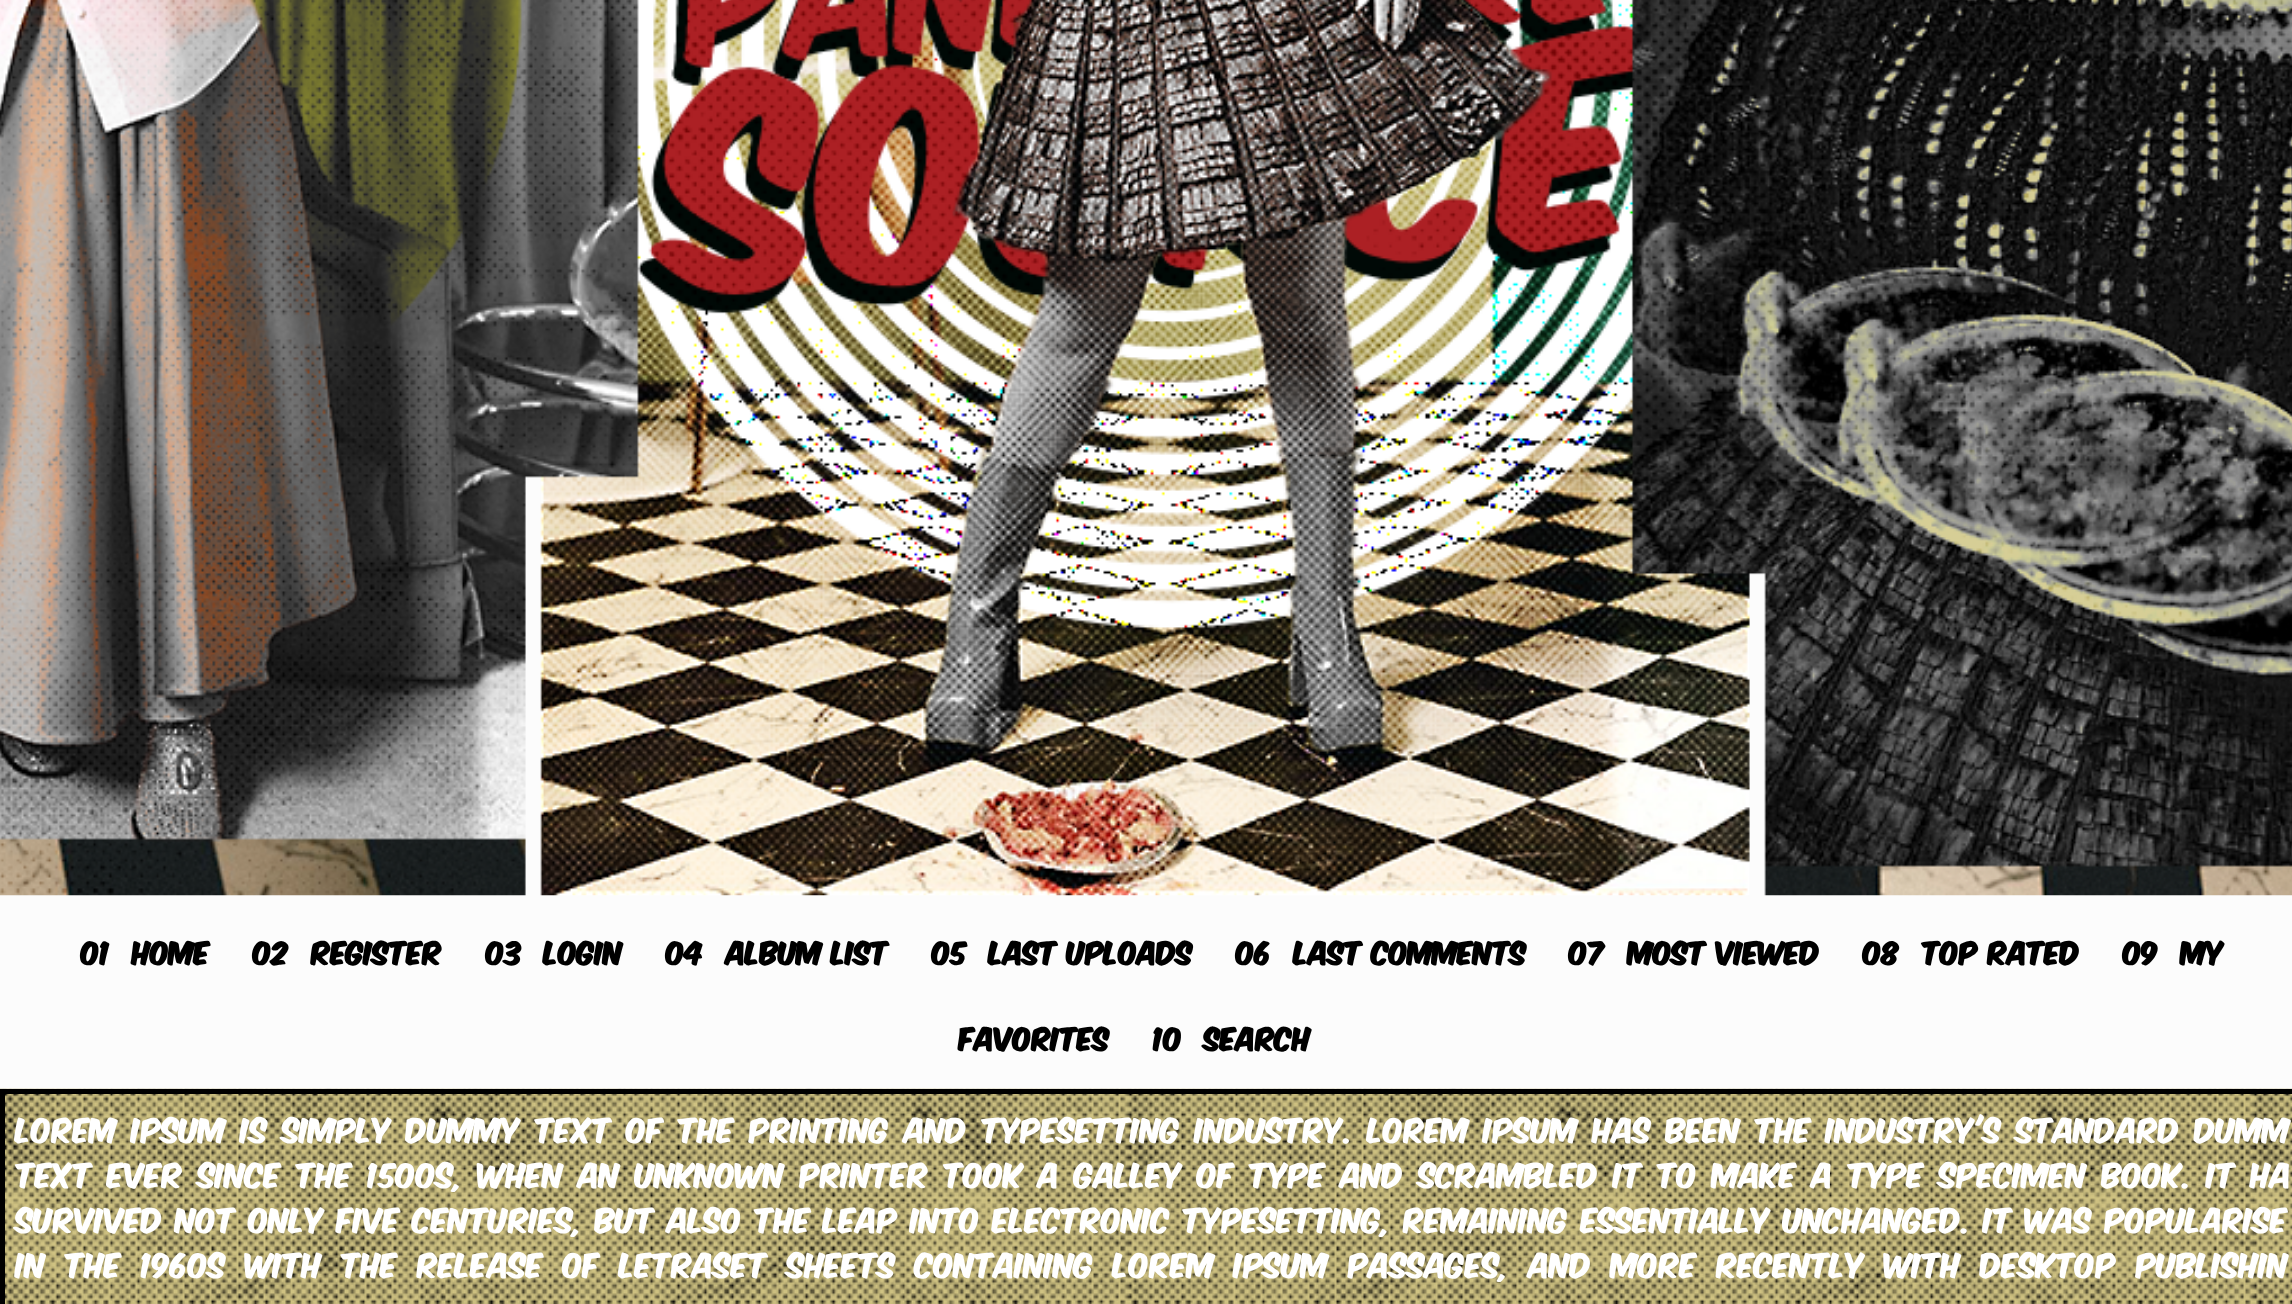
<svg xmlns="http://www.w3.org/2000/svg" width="2292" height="1304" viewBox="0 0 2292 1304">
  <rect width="100%" height="100%" fill="#fcfcfc"/>
  <image x="0" y="0" width="2292" height="896" href="img/1.png"/>
  <image x="0" y="1088" width="2292" height="216" href="img/2.png"/>
  <path d="M2.5 1091.5h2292v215H2.5z" fill="none" stroke="#000" stroke-width="5"/>
  <g font-family="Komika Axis" font-size="27" font-weight="bold" fill="#000">
    <text x="81" y="965">01</text>
    <text x="132" y="965">HOME</text>
    <text x="253" y="965">02</text>
    <text x="311" y="965">REGISTER</text>
    <text x="486" y="965">03</text>
    <text x="544" y="965">LOGIN</text>
    <text x="666" y="965">04</text>
    <text x="726" y="965">ALBUM LIST</text>
    <text x="932" y="965">05</text>
    <text x="989" y="965">LAST UPLOADS</text>
    <text x="1236" y="965">06</text>
    <text x="1294" y="965">LAST COMMENTS</text>
    <text x="1569" y="965">07</text>
    <text x="1628" y="965">MOST VIEWED</text>
    <text x="1863" y="965">08</text>
    <text x="1922" y="965">TOP RATED</text>
    <text x="2123" y="965">09</text>
    <text x="2181" y="965">MY</text>
    <text x="959" y="1051">FAVORITES</text>
    <text x="1153" y="1051">10</text>
    <text x="1204" y="1051">SEARCH</text>
  </g>
  <g font-family="Komika Axis" font-size="29.25" fill="#fff">
    <text x="16" y="1143" word-spacing="4.25">Lorem Ipsum is simply dummy text of the printing and typesetting industry. Lorem Ipsum has been the industry's standard dumm</text>
    <text x="16" y="1188" word-spacing="4.6">text ever since the 1500s, when an unknown printer took a galley of type and scrambled it to make a type specimen book. It ha</text>
    <text x="16" y="1233" word-spacing="2.25">survived not only five centuries, but also the leap into electronic typesetting, remaining essentially unchanged. It was popularise</text>
    <text x="16" y="1278" word-spacing="9.1">in the 1960s with the release of Letraset sheets containing Lorem Ipsum passages, and more recently with desktop publishin</text>
  </g>
</svg>
